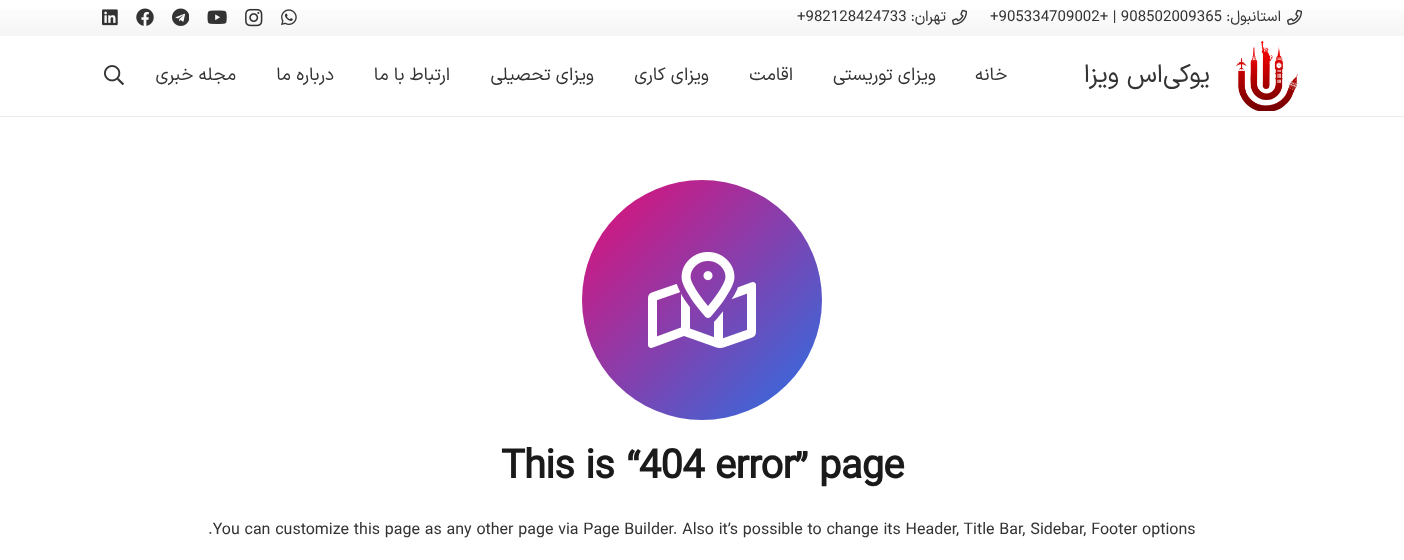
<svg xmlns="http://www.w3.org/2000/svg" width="1404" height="560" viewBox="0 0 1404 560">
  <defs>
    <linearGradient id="g1" gradientUnits="userSpaceOnUse" x1="702" y1="36" x2="702" y2="0"><stop offset="0" stop-color="#f5f5f5"/><stop offset="1" stop-color="#fff"/></linearGradient>
    <linearGradient id="g2" gradientUnits="userSpaceOnUse" x1="582" y1="180" x2="822" y2="420"><stop offset="0" stop-color="#e40d75"/><stop offset="1" stop-color="#2871e4"/></linearGradient>
  </defs>
  <rect width="100%" height="100%" fill="#fff"/>
  <path d="M0 9h1404v27H0z" fill="url(#g1)"/>
  <image x="102" y="9" width="16" height="17" href="img/1.png"/>
  <image x="136" y="8" width="18" height="18" href="img/2.png"/>
  <image x="172" y="8" width="17" height="18" href="img/3.png"/>
  <image x="207" y="10" width="20" height="14" href="img/4.png"/>
  <image x="245" y="8" width="18" height="19" href="img/5.png"/>
  <image x="281" y="9" width="16" height="17" href="img/6.png"/>
  <image x="952" y="9" width="15" height="16" href="img/7.png"/>
  <image x="1287" y="9" width="15" height="16" href="img/7.png"/>
  <path d="M0 116h1404v1H0z" fill="#ebebeb"/>
  <image x="104" y="65" width="20" height="21" href="img/8.png"/>
  <image x="1236" y="41" width="62" height="70" href="img/9.png"/>
  <circle cx="702" cy="300" r="120" fill="url(#g2)"/>
  <image x="648" y="252" width="108" height="96" href="img/10.png"/>
  <text x="797" y="21" font-family="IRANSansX" font-size="15" fill="#333">+982128424733</text>
  <text x="946" y="21" font-family="IRANSansX" font-size="15" direction="rtl" fill="#333">تهران:</text>
  <text x="990" y="21" font-family="IRANSansX" font-size="15" fill="#333">+905334709002+ | 908502009365</text>
  <text x="1281" y="21" font-family="IRANSansX" font-size="15" direction="rtl" fill="#333">استانبول:</text>
  <g font-family="IRANSansX" font-size="18" direction="rtl" fill="#333">
    <text x="236" y="80">مجله خبری</text>
    <text x="334" y="80">درباره ما</text>
    <text x="450" y="80">ارتباط با ما</text>
    <text x="594" y="80">ویزای تحصیلی</text>
    <text x="709" y="80">ویزای کاری</text>
    <text x="793" y="80">اقامت</text>
    <text x="936" y="80">ویزای توریستی</text>
    <text x="1007" y="80">خانه</text>
  </g>
  <text x="1210" y="82" font-family="IRANSansX" font-size="25.5" direction="rtl" fill="#333">یو‌کی‌اس ویزا</text>
  <text x="501" y="478" font-family="IRANSansX" font-size="40" font-weight="bold" letter-spacing="-0.8" fill="#1a1a1a">This is “404 error” page</text>
  <text x="208" y="534" font-family="IRANSansX" font-size="16" fill="#333">.You can customize this page as any other page via Page Builder. Also it’s possible to change its Header, Title Bar, Sidebar, Footer options</text>
</svg>
